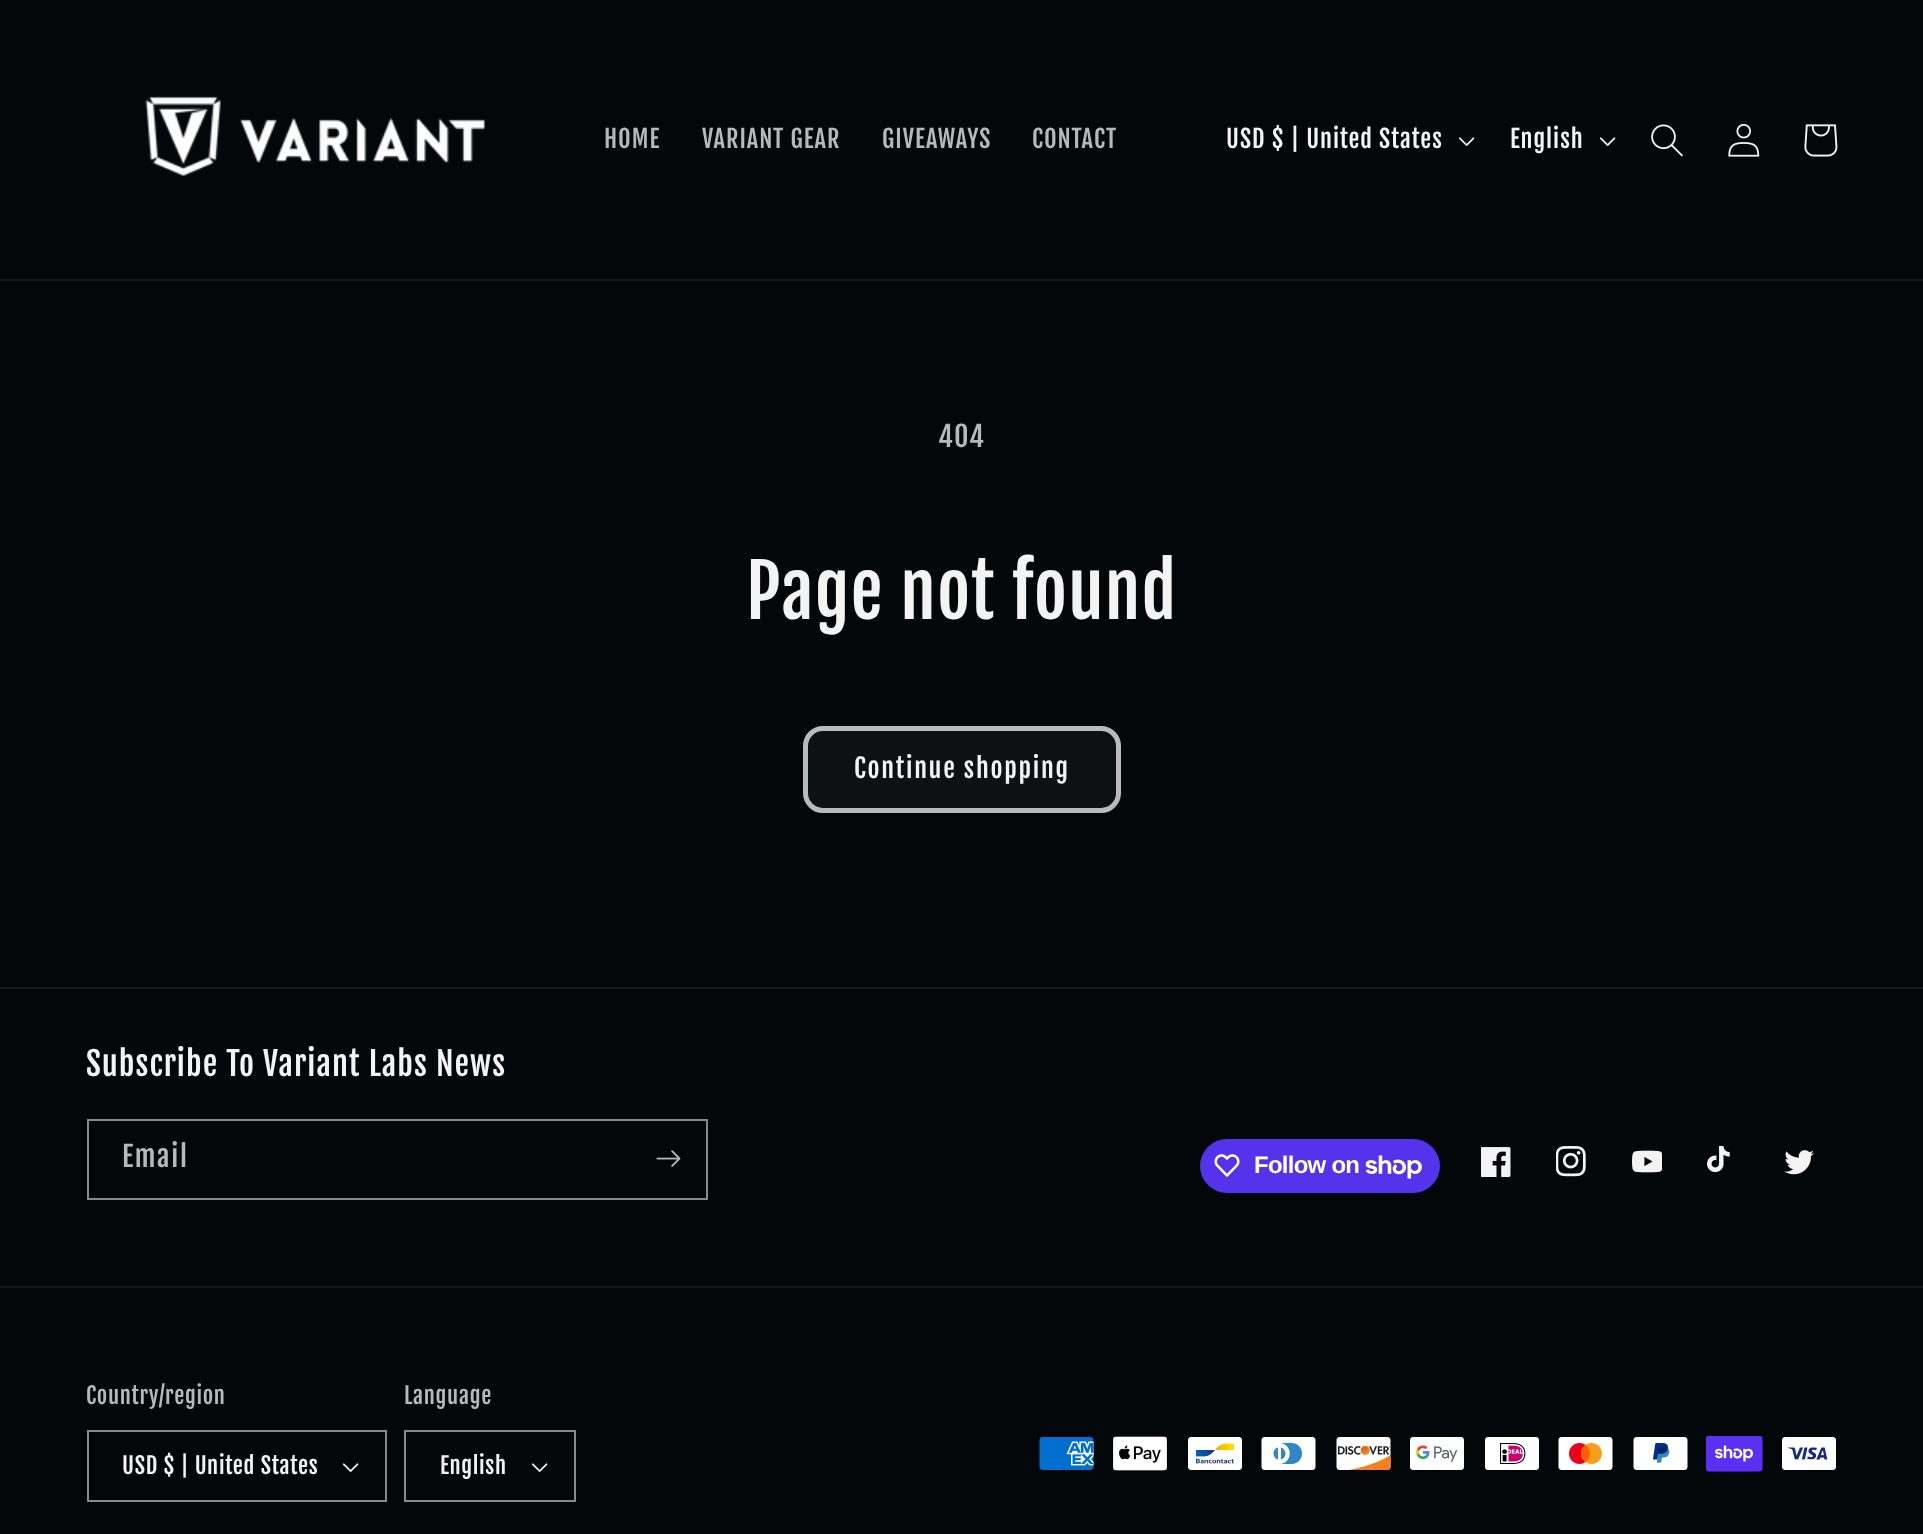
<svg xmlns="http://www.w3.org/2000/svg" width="1923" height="1534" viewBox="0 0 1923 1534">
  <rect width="100%" height="100%" fill="#03070a"/>
  <path d="M0 279h1923v2H0z" fill="#161a1d"/>
  <image x="145" y="96" width="340" height="80" href="img/1.png"/>
  <image x="1458" y="137" width="17" height="9" href="img/2.png"/>
  <image x="1599" y="137" width="17" height="9" href="img/2.png"/>
  <image x="1651" y="124" width="32" height="33" href="img/3.png"/>
  <image x="1728" y="123" width="32" height="34" href="img/4.png"/>
  <image x="1804" y="124" width="34" height="33" href="img/5.png"/>
  <rect x="803" y="726" width="318" height="87" rx="20" fill="#0e1113"/>
  <rect x="805.5" y="728.5" width="313" height="82" rx="17.5" fill="none" stroke="#0e1113" stroke-width="5"/>
  <rect x="805.5" y="728.5" width="313" height="82" rx="17.5" fill="none" stroke="#bababb" stroke-width="5"/>
  <path d="M0 987h1923v2H0z" fill="#161a1d"/>
  <path d="M88 1120h619v79H88z" fill="none" stroke="#87898a" stroke-width="2"/>
  <image x="656" y="1150" width="25" height="17" href="img/6.png"/>
  <rect x="1200" y="1139" width="240" height="54" rx="27" fill="#5433eb"/>
  <image x="1214" y="1154" width="26" height="23" href="img/7.png"/>
  <image x="1365" y="1155" width="57" height="24" href="img/8.png"/>
  <image x="1481" y="1147" width="30" height="30" href="img/9.png"/>
  <image x="1556" y="1146" width="30" height="31" href="img/10.png"/>
  <image x="1632" y="1150" width="30" height="23" href="img/11.png"/>
  <image x="1707" y="1146" width="23" height="27" href="img/12.png"/>
  <image x="1784" y="1150" width="30" height="25" href="img/13.png"/>
  <path d="M0 1286h1923v2H0z" fill="#161a1d"/>
  <image x="342" y="1463" width="17" height="9" href="img/2.png"/>
  <path d="M88 1431h298v70H88z" fill="none" stroke="#87898a" stroke-width="2"/>
  <image x="531" y="1463" width="17" height="9" href="img/2.png"/>
  <path d="M405 1431h170v70H405z" fill="none" stroke="#87898a" stroke-width="2"/>
  <image x="1039" y="1437" width="55" height="33" href="img/14.png"/>
  <image x="1112" y="1436" width="56" height="36" href="img/15.png"/>
  <image x="1188" y="1437" width="54" height="33" href="img/16.png"/>
  <image x="1261" y="1437" width="55" height="33" href="img/17.png"/>
  <image x="1336" y="1437" width="55" height="33" href="img/18.png"/>
  <image x="1410" y="1437" width="54" height="33" href="img/19.png"/>
  <image x="1485" y="1437" width="54" height="33" href="img/20.png"/>
  <image x="1558" y="1437" width="55" height="33" href="img/21.png"/>
  <image x="1633" y="1437" width="55" height="33" href="img/22.png"/>
  <image x="1706" y="1436" width="57" height="36" href="img/23.png"/>
  <image x="1782" y="1437" width="54" height="33" href="img/24.png"/>
  <g font-family="Fjalla One" font-size="24.25" letter-spacing="1" fill="#b7b8b9">
    <text x="604" y="148">HOME</text>
    <text x="702" y="148">VARIANT GEAR</text>
    <text x="882" y="148">GIVEAWAYS</text>
    <text x="1032" y="148">CONTACT</text>
  </g>
  <g font-family="Fjalla One" font-size="24.25" letter-spacing="1" fill="#f3f3f3">
    <text x="1226" y="148">USD $ | United States</text>
    <text x="1510" y="148">English</text>
  </g>
  <text x="938" y="447" font-family="Fjalla One" font-size="28" letter-spacing="1" fill="#b7b8b9">404</text>
  <text x="746" y="619" font-family="Fjalla One" font-size="72" letter-spacing="1.1" fill="#f3f3f3">Page not found</text>
  <text x="854" y="778" font-family="Fjalla One" font-size="26" letter-spacing="1.75" fill="#f3f3f3">Continue shopping</text>
  <text x="86" y="1076" font-family="Fjalla One" font-size="32.4" letter-spacing="1.1" fill="#f3f3f3">Subscribe To Variant Labs News</text>
  <text x="122" y="1167" font-family="Fjalla One" font-size="28" letter-spacing="1.75" fill="#b7b8b9">Email</text>
  <text x="1254" y="1173" font-family="Liberation Sans" font-size="24" font-weight="bold" letter-spacing="-0.75" fill="#fff">Follow on</text>
  <text x="86" y="1404" font-family="Fjalla One" font-size="22.5" letter-spacing="0.7" fill="#b7b8b9">Country/region</text>
  <text x="122" y="1474" font-family="Fjalla One" font-size="22.5" letter-spacing="0.7" fill="#f3f3f3">USD $ | United States</text>
  <text x="404" y="1404" font-family="Fjalla One" font-size="22.5" letter-spacing="0.7" fill="#b7b8b9">Language</text>
  <text x="440" y="1474" font-family="Fjalla One" font-size="22.5" letter-spacing="0.7" fill="#f3f3f3">English</text>
</svg>
